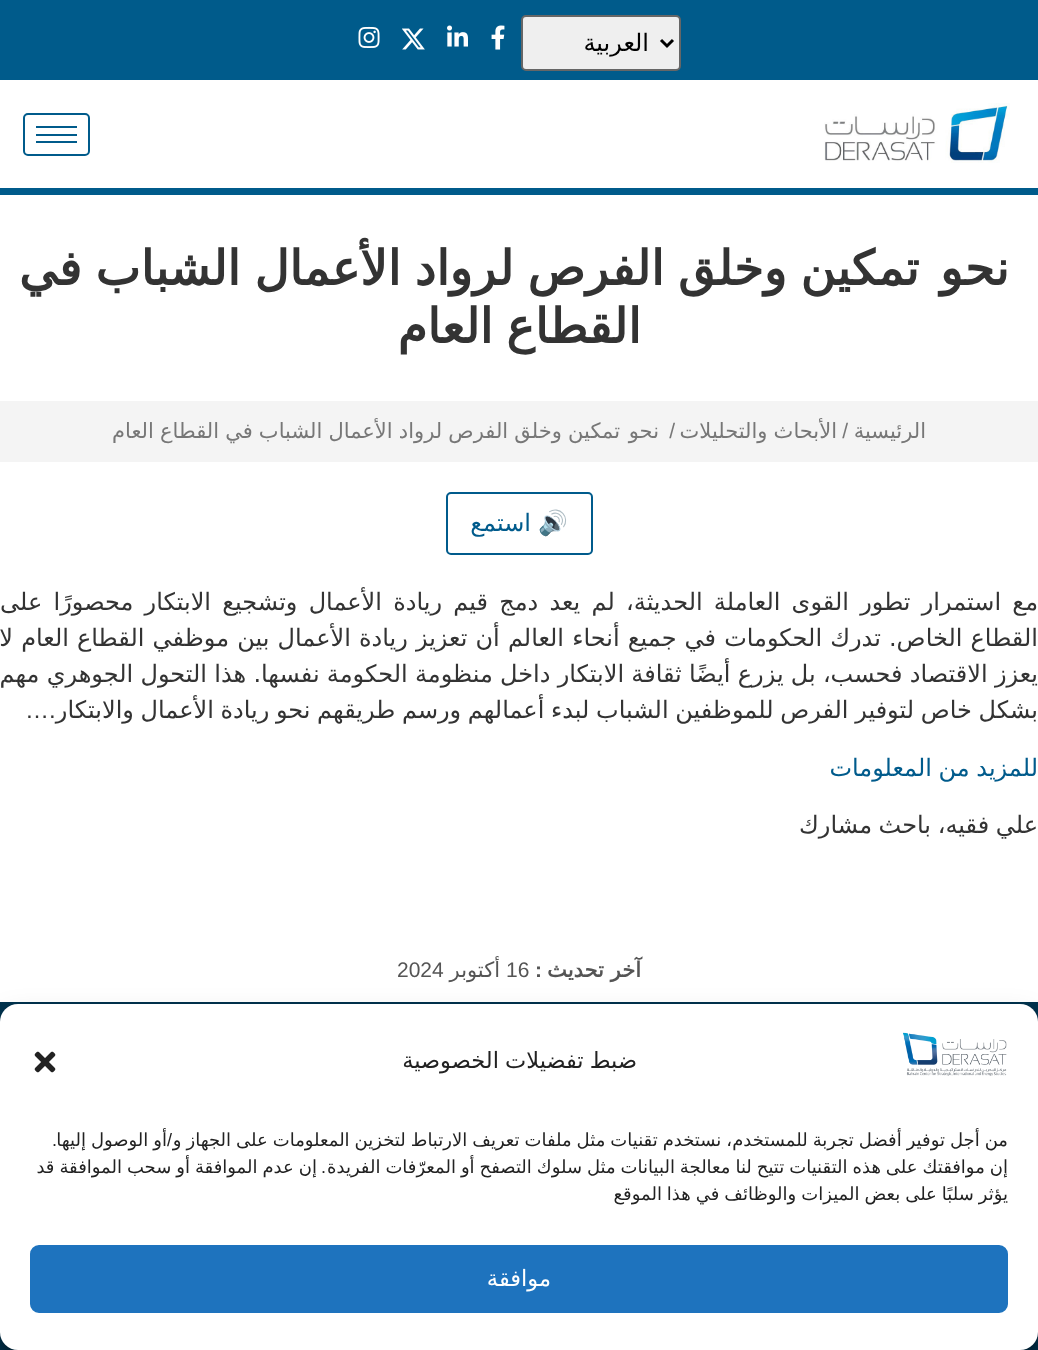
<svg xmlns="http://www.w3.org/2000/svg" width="1038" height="1350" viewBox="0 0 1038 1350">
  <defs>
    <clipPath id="clip1"><path d="M30 1127h978v88H30z"/></clipPath>
  </defs>
  <rect width="100%" height="100%" fill="#fff"/>
  <path d="M0 188h1038v7H0z" fill="#005b8b"/>
  <path d="M0 0h1038v80H0z" fill="#005b8b"/>
  <rect x="522" y="16" width="158" height="54" rx="4" fill="#efefef" stroke="#666" stroke-width="2"/>
  <path d="M661 40L667 46L673 40" fill="none" stroke="#000" stroke-width="3"/>
  <image x="491" y="25" width="14" height="25" href="img/1.png"/>
  <image x="447" y="25" width="21" height="22" href="img/2.png"/>
  <image x="402" y="28" width="23" height="22" href="img/3.png"/>
  <image x="358" y="26" width="22" height="22" href="img/4.png"/>
  <image x="824" y="103" width="186" height="60" href="img/5.png"/>
  <rect x="24" y="114" width="65" height="41" rx="4" fill="none" stroke="#005b8b" stroke-width="2"/>
  <path d="M36 126h41v2H36z" fill="#005b8b"/>
  <path d="M36 134h41v2H36z" fill="#005b8b"/>
  <path d="M36 141h41v2H36z" fill="#005b8b"/>
  <path d="M0 401h1038v61H0z" fill="#f4f4f4"/>
  <rect x="447" y="493" width="145" height="61" rx="4" fill="none" stroke="#005b8c" stroke-width="2"/>
  <path d="M0 1002h1038v348H0z" fill="#00324d"/>
  <rect y="1013" width="1038" height="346" rx="18" fill="#0000003b" filter="blur(4.5px)"/>
  <rect y="1019" width="1038" height="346" rx="18" fill="#00000030" filter="blur(15px)"/>
  <rect y="1004" width="1038" height="346" rx="18" fill="#fff"/>
  <image x="903" y="1032" width="104" height="44" href="img/6.png"/>
  <image x="34" y="1051" width="22" height="22" href="img/7.png"/>
  <rect x="31" y="1246" width="976" height="66" rx="8" fill="#1e73be" stroke="#1e73be" stroke-width="2"/>
  <text x="649" y="51" font-family="DejaVu Sans" font-size="24" direction="rtl" fill="#000">العربية</text>
  <g font-family="DejaVu Sans" font-size="48" font-weight="bold" direction="rtl" fill="#333">
    <text x="1009" y="285">نحو</text>
    <text x="919" y="285" word-spacing="-1.5">تمكين وخلق الفرص لرواد الأعمال الشباب في</text>
    <text x="641" y="343" word-spacing="-2">القطاع العام</text>
  </g>
  <text x="926" y="438" font-family="DejaVu Sans" font-size="21" direction="rtl" fill="#777">الرئيسية</text>
  <text x="848" y="438" font-family="Liberation Sans" font-size="21" direction="rtl" fill="#777">/</text>
  <text x="837" y="438" word-spacing="-0.5" font-family="DejaVu Sans" font-size="21" direction="rtl" fill="#777">الأبحاث والتحليلات</text>
  <text x="675" y="438" font-family="Liberation Sans" font-size="21" direction="rtl" fill="#777">/</text>
  <g font-family="DejaVu Sans" font-size="21" direction="rtl" fill="#777">
    <text x="659" y="438">نحو</text>
    <text x="620" y="438" word-spacing="-0.5">تمكين وخلق الفرص لرواد الأعمال الشباب في القطاع العام</text>
  </g>
  <text x="568" y="531" font-family="Noto Color Emoji" font-size="24" direction="rtl" fill="#005b8c">🔊</text>
  <text x="531" y="531" font-family="DejaVu Sans" font-size="24" direction="rtl" fill="#005b8c">استمع</text>
  <g font-family="DejaVu Sans" font-size="24" direction="rtl" fill="#333">
    <text x="1038" y="610" word-spacing="3.6">مع استمرار تطور القوى العاملة الحديثة، لم يعد دمج قيم ريادة الأعمال وتشجيع الابتكار محصورًا على</text>
    <text x="1038" y="646" word-spacing="0.5">القطاع الخاص. تدرك الحكومات في جميع أنحاء العالم أن تعزيز ريادة الأعمال بين موظفي القطاع العام لا</text>
    <text x="1038" y="682" word-spacing="-0.4">يعزز الاقتصاد فحسب، بل يزرع أيضًا ثقافة الابتكار داخل منظومة الحكومة نفسها. هذا التحول الجوهري مهم</text>
    <text x="1038" y="718" word-spacing="-1">بشكل خاص لتوفير الفرص للموظفين الشباب لبدء أعمالهم ورسم طريقهم نحو ريادة الأعمال والابتكار</text>
  </g>
  <g font-family="Liberation Sans" font-size="24" fill="#333">
    <text x="49" y="718">.</text>
    <text x="25" y="718">…</text>
  </g>
  <text x="1038" y="776" word-spacing="-1" font-family="DejaVu Sans" font-size="24" direction="rtl" fill="#005b8c">للمزيد من المعلومات</text>
  <text x="1038" y="833" word-spacing="-1" font-family="DejaVu Sans" font-size="24" direction="rtl" fill="#333">علي فقيه، باحث مشارك</text>
  <text x="641" y="977" font-family="DejaVu Sans" font-size="21" font-weight="bold" direction="rtl" fill="#555">آخر تحديث</text>
  <text x="542" y="977" font-family="Liberation Sans" font-size="21" font-weight="bold" direction="rtl" fill="#555">:</text>
  <text x="506" y="977" font-family="Liberation Sans" font-size="21" fill="#555">16</text>
  <text x="500" y="977" font-family="DejaVu Sans" font-size="21" direction="rtl" fill="#555">أكتوبر</text>
  <text x="397" y="977" font-family="Liberation Sans" font-size="21" fill="#555">2024</text>
  <text x="637" y="1068" word-spacing="-1" font-family="DejaVu Sans" font-size="22.5" direction="rtl" fill="#222">ضبط تفضيلات الخصوصية</text>
  <text x="167" y="1146" word-spacing="-0.75" font-family="DejaVu Sans" font-size="18" direction="rtl" fill="#222">أو الوصول إليها</text>
  <text x="172" y="1146" font-family="Liberation Sans" font-size="18" direction="rtl" fill="#222">/</text>
  <g clip-path="url(#clip1)">
    <text x="1008" y="1146" word-spacing="-0.75" font-family="DejaVu Sans" font-size="18" direction="rtl" fill="#222">من أجل توفير أفضل تجربة للمستخدم، نستخدم تقنيات مثل ملفات تعريف الارتباط لتخزين المعلومات على الجهاز و</text>
  </g>
  <text x="57" y="1146" font-family="Liberation Sans" font-size="18" direction="rtl" fill="#222">.</text>
  <g clip-path="url(#clip1)">
    <text x="1008" y="1173" word-spacing="-0.75" font-family="DejaVu Sans" font-size="18" direction="rtl" fill="#222">إن موافقتك على هذه التقنيات تتيح لنا معالجة البيانات مثل سلوك التصفح أو المعرّفات الفريدة</text>
  </g>
  <text x="326" y="1173" font-family="Liberation Sans" font-size="18" direction="rtl" fill="#222">.</text>
  <text x="317" y="1173" word-spacing="-0.75" font-family="DejaVu Sans" font-size="18" direction="rtl" fill="#222">إن عدم الموافقة أو سحب الموافقة قد</text>
  <g clip-path="url(#clip1)">
    <text x="1008" y="1200" word-spacing="-0.75" font-family="DejaVu Sans" font-size="18" direction="rtl" fill="#222">يؤثر سلبًا على بعض الميزات والوظائف في هذا الموقع</text>
  </g>
  <text x="551" y="1286" font-family="DejaVu Sans" font-size="22.5" direction="rtl" fill="#fff">موافقة</text>
</svg>
